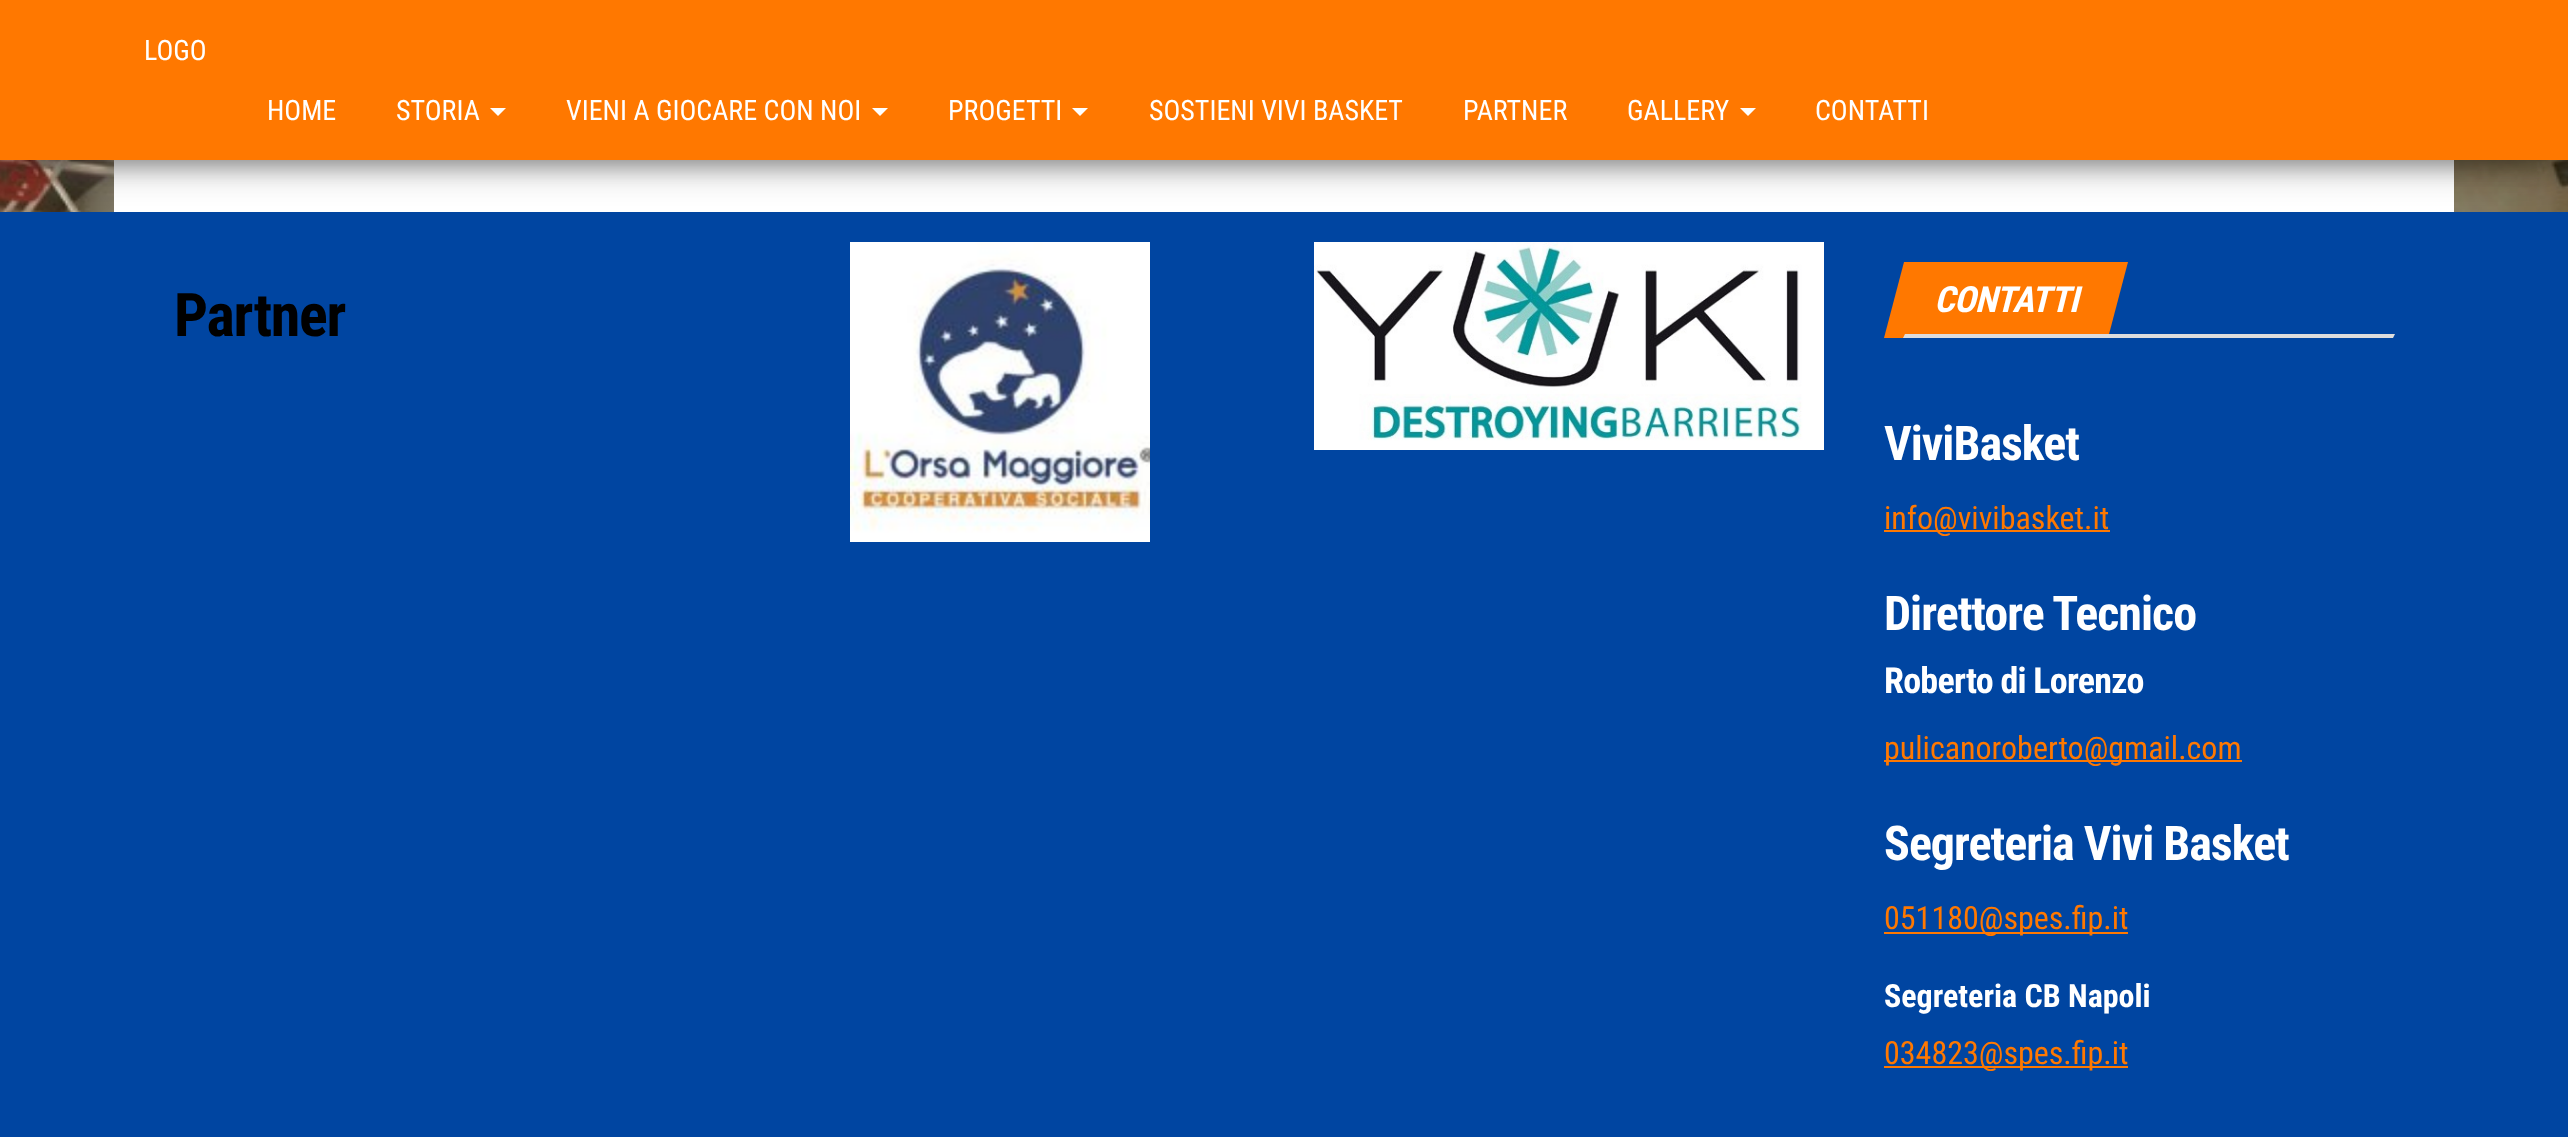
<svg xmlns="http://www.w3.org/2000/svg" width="2568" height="1137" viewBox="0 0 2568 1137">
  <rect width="100%" height="100%" fill="#fff"/>
  <image x="0" y="160" width="2568" height="52" href="img/1.png"/>
  <path d="M114 160h2340v52H114z" fill="#fff"/>
  <path d="M10 26h2548v140H10z" fill="#00000033" filter="blur(10px)"/>
  <path d="M0 212h2568v925H0z" fill="#0045a1"/>
  <path d="M0 6h2568v160H0z" fill="#0000001f" filter="blur(20px)"/>
  <path d="M24 44h2520v112H24z" fill="#0000006b" filter="blur(20px)"/>
  <path d="M0 0h2568v160H0z" fill="#ff7800"/>
  <path d="M490 108H506L498 116Z" fill="#fff"/>
  <path d="M872 108H888L880 116Z" fill="#fff"/>
  <path d="M1072 108H1088L1080 116Z" fill="#fff"/>
  <path d="M1740 108H1756L1748 116Z" fill="#fff"/>
  <image x="850" y="242" width="300" height="300" href="img/2.png"/>
  <image x="1314" y="242" width="510" height="208" href="img/3.png"/>
  <path d="M1904 262H2128L2108 338H1884Z" fill="#ff7800"/>
  <path d="M1905 334H2395L2393 338H1903Z" fill="#ddd"/>
  <path d="M1884 530h226v2H1884z" fill="#ff7800"/>
  <path d="M1884 760h358v2H1884z" fill="#ff7800"/>
  <path d="M1884 932h244v2H1884z" fill="#ff7800"/>
  <path d="M1884 1066h244v2H1884z" fill="#ff7800"/>
  <g font-family="Roboto Condensed" font-size="28" fill="#fff">
    <text x="144" y="60">LOGO</text>
    <text x="267" y="120">HOME</text>
    <text x="396" y="120">STORIA</text>
    <text x="566" y="120">VIENI A GIOCARE CON NOI</text>
    <text x="948" y="120">PROGETTI</text>
    <text x="1149" y="120">SOSTIENI VIVI BASKET</text>
    <text x="1463" y="120">PARTNER</text>
    <text x="1627" y="120">GALLERY</text>
    <text x="1815" y="120">CONTATTI</text>
  </g>
  <text x="174" y="336" font-family="Roboto Condensed" font-size="60" font-weight="bold" letter-spacing="-1.25" fill="#000">Partner</text>
  <text x="1934" y="312" font-family="Roboto Condensed" font-size="36" font-weight="bold" font-style="italic" letter-spacing="-0.75" fill="#fff">CONTATTI</text>
  <text x="1884" y="460" font-family="Roboto Condensed" font-size="48" font-weight="bold" letter-spacing="-1" fill="#fff">ViviBasket</text>
  <text x="1884" y="529" font-family="Roboto Condensed" font-size="32" fill="#ff7800">info@vivibasket.it</text>
  <text x="1884" y="630" font-family="Roboto Condensed" font-size="48" font-weight="bold" letter-spacing="-1" fill="#fff">Direttore Tecnico</text>
  <text x="1884" y="693" font-family="Roboto Condensed" font-size="36" font-weight="bold" letter-spacing="-0.75" fill="#fff">Roberto di Lorenzo</text>
  <text x="1884" y="759" font-family="Roboto Condensed" font-size="32" fill="#ff7800">pulicanoroberto@gmail.com</text>
  <text x="1884" y="860" font-family="Roboto Condensed" font-size="48" font-weight="bold" letter-spacing="-1" fill="#fff">Segreteria Vivi Basket</text>
  <text x="1884" y="929" font-family="Roboto Condensed" font-size="32" fill="#ff7800">051180@spes.fip.it</text>
  <text x="1884" y="1007" font-family="Roboto Condensed" font-size="32" font-weight="bold" fill="#fff">Segreteria CB Napoli</text>
  <text x="1884" y="1064" font-family="Roboto Condensed" font-size="32" fill="#ff7800">034823@spes.fip.it</text>
</svg>
